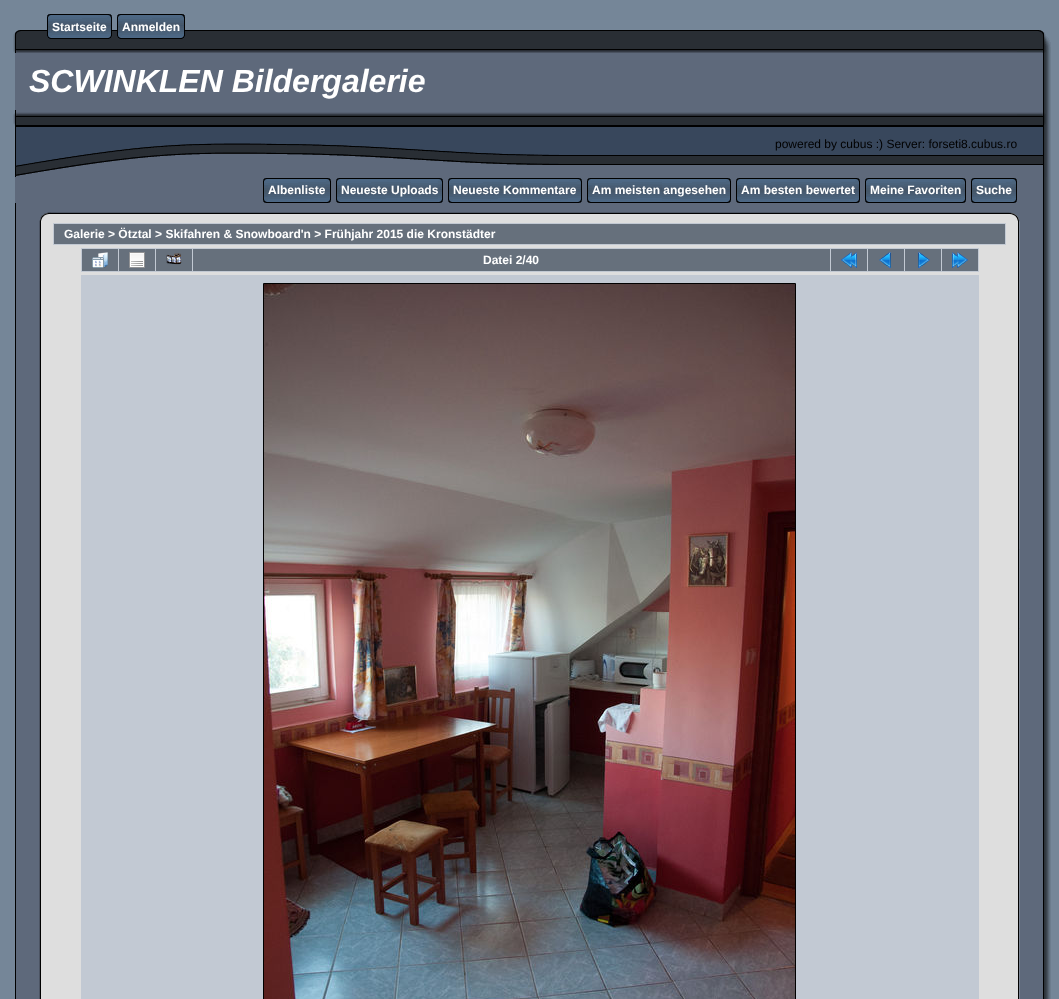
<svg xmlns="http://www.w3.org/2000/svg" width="1059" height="999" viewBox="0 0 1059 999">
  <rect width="100%" height="100%" fill="#758698"/>
  <image x="42" y="30" width="975" height="23" href="img/1.png"/>
  <image x="47" y="14" width="5" height="25" href="img/2.png"/>
  <image x="52" y="14" width="55" height="25" href="img/3.png"/>
  <image x="107" y="14" width="5" height="25" href="img/4.png"/>
  <image x="117" y="14" width="5" height="25" href="img/2.png"/>
  <image x="122" y="14" width="58" height="25" href="img/5.png"/>
  <image x="180" y="14" width="5" height="25" href="img/4.png"/>
  <image x="13" y="30" width="29" height="23" href="img/6.png"/>
  <image x="1017" y="30" width="34" height="23" href="img/7.png"/>
  <path d="M15 53h1028v57H15z" fill="#5e697b"/>
  <image x="1043" y="53" width="8" height="57" href="img/8.png"/>
  <image x="13" y="110" width="547" height="67" href="img/9.png"/>
  <image x="560" y="110" width="457" height="67" href="img/10.png"/>
  <image x="1017" y="110" width="34" height="67" href="img/11.png"/>
  <path d="M15 177h1002v26H15z" fill="#5e697b"/>
  <image x="1017" y="177" width="34" height="26" href="img/12.png"/>
  <image x="263" y="178" width="5" height="25" href="img/13.png"/>
  <image x="268" y="178" width="58" height="25" href="img/14.png"/>
  <image x="326" y="178" width="5" height="25" href="img/15.png"/>
  <image x="336" y="178" width="5" height="25" href="img/13.png"/>
  <image x="341" y="178" width="97" height="25" href="img/16.png"/>
  <image x="438" y="178" width="5" height="25" href="img/15.png"/>
  <image x="448" y="178" width="5" height="25" href="img/13.png"/>
  <image x="453" y="178" width="124" height="25" href="img/17.png"/>
  <image x="577" y="178" width="5" height="25" href="img/15.png"/>
  <image x="587" y="178" width="5" height="25" href="img/13.png"/>
  <image x="592" y="178" width="134" height="25" href="img/18.png"/>
  <image x="726" y="178" width="5" height="25" href="img/15.png"/>
  <image x="736" y="178" width="5" height="25" href="img/13.png"/>
  <image x="741" y="178" width="114" height="25" href="img/19.png"/>
  <image x="855" y="178" width="5" height="25" href="img/15.png"/>
  <image x="865" y="178" width="5" height="25" href="img/13.png"/>
  <image x="870" y="178" width="91" height="25" href="img/20.png"/>
  <image x="961" y="178" width="5" height="25" href="img/15.png"/>
  <image x="971" y="178" width="5" height="25" href="img/13.png"/>
  <image x="976" y="178" width="36" height="25" href="img/21.png"/>
  <image x="1012" y="178" width="5" height="25" href="img/15.png"/>
  <image x="15" y="203" width="27" height="18" href="img/22.png"/>
  <image x="42" y="203" width="14" height="18" href="img/23.png"/>
  <image x="56" y="203" width="947" height="18" href="img/24.png"/>
  <image x="1003" y="203" width="14" height="18" href="img/25.png"/>
  <image x="1017" y="203" width="34" height="18" href="img/26.png"/>
  <image x="15" y="221" width="27" height="778" href="img/27.png"/>
  <path d="M42 221h975v778H42z" fill="#dedede"/>
  <path d="M53 223h953v22H53z" fill="#c2c9d3"/>
  <path d="M54 224h951v20H54z" fill="#66707c"/>
  <path d="M81 248h898v24H81z" fill="#c2c9d3"/>
  <path d="M82 249h36v22H82z" fill="#66707c"/>
  <image x="92" y="252" width="16" height="16" href="img/28.png"/>
  <path d="M119 249h36v22H119z" fill="#66707c"/>
  <image x="129" y="252" width="16" height="16" href="img/29.png"/>
  <path d="M156 249h36v22H156z" fill="#66707c"/>
  <image x="166" y="253" width="16" height="12" href="img/30.png"/>
  <path d="M193 249h637v22H193z" fill="#66707c"/>
  <path d="M831 249h36v22H831z" fill="#66707c"/>
  <image x="841" y="252" width="16" height="16" href="img/31.png"/>
  <path d="M868 249h36v22H868z" fill="#66707c"/>
  <image x="879" y="252" width="12" height="16" href="img/32.png"/>
  <path d="M905 249h36v22H905z" fill="#66707c"/>
  <image x="918" y="252" width="12" height="16" href="img/33.png"/>
  <path d="M942 249h36v22H942z" fill="#66707c"/>
  <image x="952" y="252" width="16" height="16" href="img/34.png"/>
  <path d="M81 275h898v724H81z" fill="#c2c9d3"/>
  <path d="M263.5 283.5h532v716H263.5z" fill="none" stroke="#000"/>
  <image x="264" y="284" width="531" height="715" href="img/35.png"/>
  <image x="1017" y="221" width="34" height="778" href="img/36.png"/>
  <image x="1019" y="628" width="1" height="250" href="img/37.png"/>
  <g font-family="Liberation Sans" font-size="12" font-weight="bold" fill="#fff">
    <text x="52" y="31">Startseite</text>
    <text x="122" y="31">Anmelden</text>
  </g>
  <text x="29" y="92" font-family="Liberation Sans" font-size="32" font-weight="bold" font-style="italic" fill="#fff">SCWINKLEN Bildergalerie</text>
  <text x="775" y="148" font-family="Liberation Sans" font-size="12" fill="#000">powered by cubus :) Server: forseti8.cubus.ro</text>
  <g font-family="Liberation Sans" font-size="12" font-weight="bold" fill="#fff">
    <text x="268" y="194">Albenliste</text>
    <text x="341" y="194">Neueste Uploads</text>
    <text x="453" y="194">Neueste Kommentare</text>
    <text x="592" y="194">Am meisten angesehen</text>
    <text x="741" y="194">Am besten bewertet</text>
    <text x="870" y="194">Meine Favoriten</text>
    <text x="976" y="194">Suche</text>
    <text x="64" y="238">Galerie &gt; Ötztal &gt; Skifahren &amp; Snowboard'n &gt; Frühjahr 2015 die Kronstädter</text>
    <text x="483" y="264">Datei 2/40</text>
  </g>
</svg>
